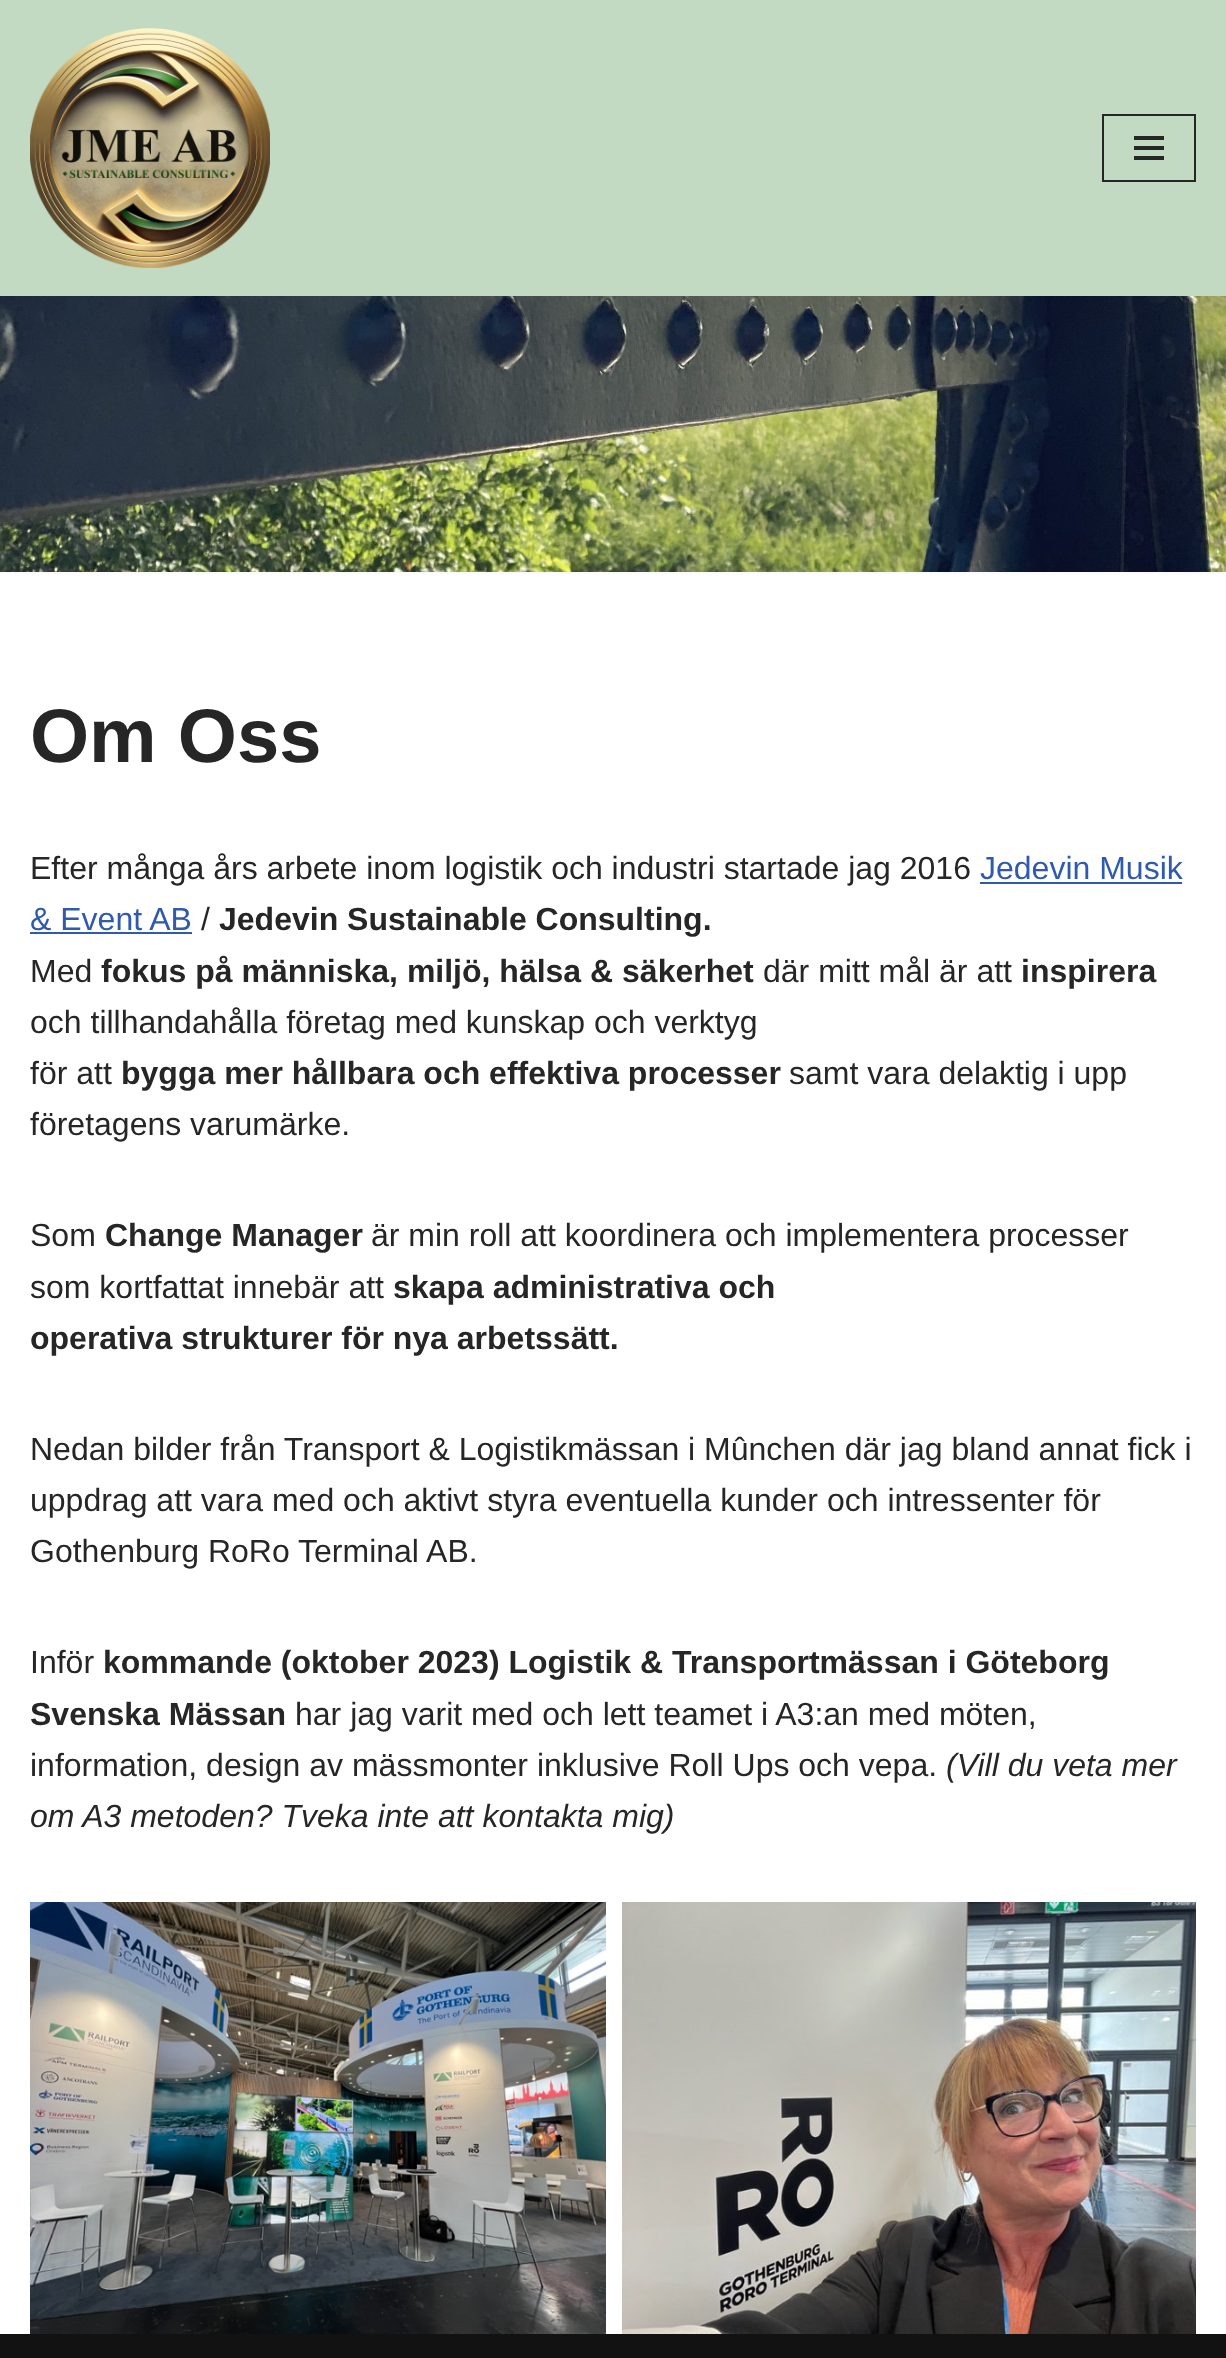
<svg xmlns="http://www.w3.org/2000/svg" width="1226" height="2358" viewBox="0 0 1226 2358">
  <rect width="100%" height="100%" fill="#fff"/>
  <path d="M0 -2h1226v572H0z" fill="#0000001a" filter="blur(3px)"/>
  <path d="M0 0h1226v296H0z" fill="#c1dac1"/>
  <image x="30" y="28" width="240" height="240" href="img/1.png"/>
  <path d="M1103 115h92v66H1103z" fill="none" stroke="#272626" stroke-width="2"/>
  <path d="M1134 136h30v4H1134z" fill="#272626"/>
  <path d="M1134 146h30v4H1134z" fill="#272626"/>
  <path d="M1134 156h30v4H1134z" fill="#272626"/>
  <image x="0" y="296" width="1226" height="276" href="img/2.png"/>
  <path d="M980 882h202v2H980z" fill="#2f5aae"/>
  <path d="M30 932h162v2H30z" fill="#2f5aae"/>
  <image x="30" y="1902" width="576" height="432" href="img/3.png"/>
  <image x="622" y="1902" width="574" height="432" href="img/4.png"/>
  <path d="M0 2334h1226v24H0z" fill="#121212"/>
  <text x="30" y="762" font-family="Liberation Sans" font-size="76" font-weight="bold" fill="#272626">Om Oss</text>
  <text x="30" y="879" font-family="Liberation Sans" font-size="32" fill="#272626">Efter många års arbete inom logistik och industri startade jag 2016</text>
  <g font-family="Liberation Sans" font-size="32" fill="#2f5aae">
    <text x="980" y="879">Jedevin Musik</text>
    <text x="30" y="930">&amp; Event AB</text>
  </g>
  <text x="201" y="930" font-family="Liberation Sans" font-size="32" fill="#272626">/</text>
  <text x="219" y="930" font-family="Liberation Sans" font-size="32" font-weight="bold" fill="#272626">Jedevin Sustainable Consulting.</text>
  <text x="30" y="982" font-family="Liberation Sans" font-size="32" fill="#272626">Med</text>
  <text x="101" y="982" font-family="Liberation Sans" font-size="32" font-weight="bold" fill="#272626">fokus på människa, miljö, hälsa &amp; säkerhet</text>
  <text x="763" y="982" font-family="Liberation Sans" font-size="32" fill="#272626">där mitt mål är att</text>
  <text x="1021" y="982" font-family="Liberation Sans" font-size="32" font-weight="bold" fill="#272626">inspirera</text>
  <g font-family="Liberation Sans" font-size="32" fill="#272626">
    <text x="30" y="1033">och tillhandahålla företag med kunskap och verktyg</text>
    <text x="30" y="1084">för att</text>
  </g>
  <text x="121" y="1084" font-family="Liberation Sans" font-size="32" font-weight="bold" fill="#272626">bygga mer hållbara och effektiva processer</text>
  <g font-family="Liberation Sans" font-size="32" fill="#272626">
    <text x="789" y="1084">samt vara delaktig i upp</text>
    <text x="30" y="1135">företagens varumärke.</text>
    <text x="30" y="1246">Som</text>
  </g>
  <text x="105" y="1246" font-family="Liberation Sans" font-size="32" font-weight="bold" fill="#272626">Change Manager</text>
  <g font-family="Liberation Sans" font-size="32" fill="#272626">
    <text x="371" y="1246">är min roll att koordinera och implementera processer</text>
    <text x="30" y="1298">som kortfattat innebär att</text>
  </g>
  <g font-family="Liberation Sans" font-size="32" font-weight="bold" fill="#272626">
    <text x="393" y="1298">skapa administrativa och</text>
    <text x="30" y="1349">operativa strukturer för nya arbetssätt.</text>
  </g>
  <g font-family="Liberation Sans" font-size="32" fill="#272626">
    <text x="30" y="1460">Nedan bilder från Transport &amp; Logistikmässan i Mûnchen där jag bland annat fick i</text>
    <text x="30" y="1511">uppdrag att vara med och aktivt styra eventuella kunder och intressenter för</text>
    <text x="30" y="1562">Gothenburg RoRo Terminal AB.</text>
    <text x="30" y="1673">Inför</text>
  </g>
  <g font-family="Liberation Sans" font-size="32" font-weight="bold" fill="#272626">
    <text x="103" y="1673">kommande (oktober 2023) Logistik &amp; Transportmässan i Göteborg</text>
    <text x="30" y="1725">Svenska Mässan</text>
  </g>
  <g font-family="Liberation Sans" font-size="32" fill="#272626">
    <text x="295" y="1725">har jag varit med och lett teamet i A3:an med möten,</text>
    <text x="30" y="1776">information, design av mässmonter inklusive Roll Ups och vepa.</text>
  </g>
  <g font-family="Liberation Sans" font-size="32" font-style="italic" fill="#272626">
    <text x="946" y="1776">(Vill du veta mer</text>
    <text x="30" y="1827">om A3 metoden? Tveka inte att kontakta mig)</text>
  </g>
</svg>
